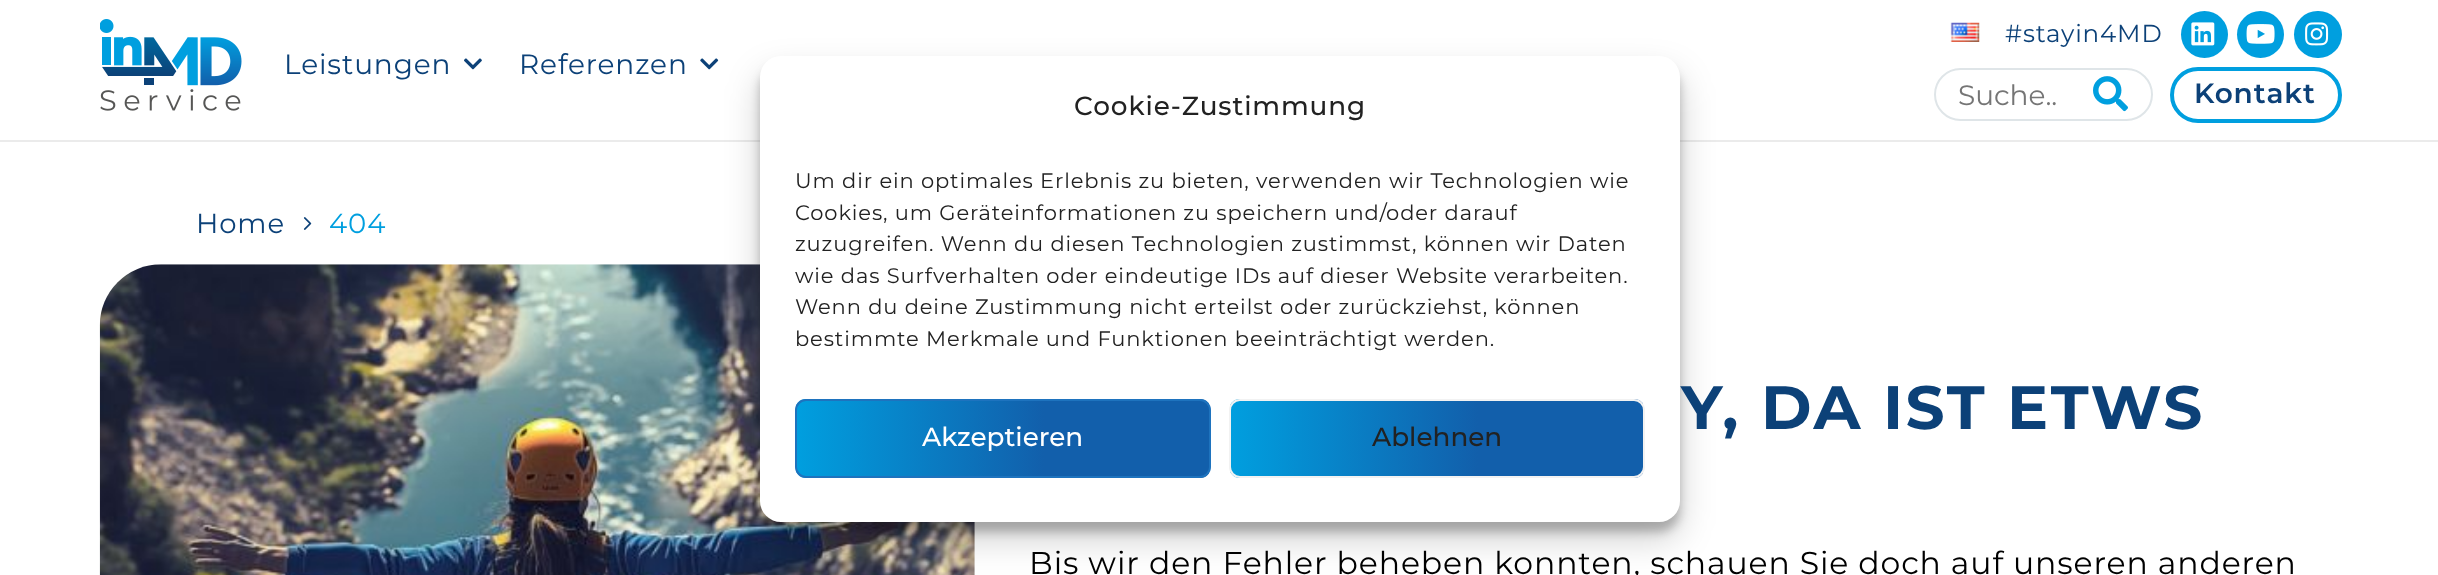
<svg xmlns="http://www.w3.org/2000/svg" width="2438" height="575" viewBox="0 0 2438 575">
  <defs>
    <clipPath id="clip1"><rect x="795" y="399" width="416" height="79" rx="11"/></clipPath>
    <linearGradient id="g1" gradientUnits="userSpaceOnUse" x1="796" y1="438" x2="1209" y2="438"><stop offset="0" stop-color="#009fdf"/><stop offset="0.6" stop-color="#125fab"/></linearGradient>
    <clipPath id="clip2"><rect x="1229" y="399" width="416" height="79" rx="11"/></clipPath>
    <linearGradient id="g2" gradientUnits="userSpaceOnUse" x1="1230" y1="438" x2="1643" y2="438"><stop offset="0" stop-color="#009fdf"/><stop offset="0.6" stop-color="#125fab"/></linearGradient>
  </defs>
  <rect width="100%" height="100%" fill="#fff"/>
  <path d="M0 140h2438v2H0z" fill="#ebebeb"/>
  <image x="100" y="19" width="142" height="92" href="img/1.png"/>
  <image x="464" y="58" width="18" height="12" href="img/2.png"/>
  <image x="700" y="58" width="19" height="12" href="img/3.png"/>
  <image x="1950" y="22" width="30" height="20" href="img/4.png"/>
  <circle cx="2204.5" cy="34.5" r="23.5" fill="#009fdf"/>
  <image x="2191" y="22" width="24" height="24" href="img/5.png"/>
  <circle cx="2260.5" cy="34.5" r="23.5" fill="#009fdf"/>
  <image x="2246" y="24" width="29" height="20" href="img/6.png"/>
  <rect x="2294" y="11" width="48" height="47" rx="23.5" fill="#009fdf"/>
  <image x="2305" y="22" width="24" height="24" href="img/7.png"/>
  <rect x="1935" y="69" width="217" height="51" rx="25.5" fill="none" stroke="#dfe5e8" stroke-width="2"/>
  <image x="2093" y="76" width="35" height="36" href="img/8.png"/>
  <rect x="2172" y="69" width="168" height="52" rx="26" fill="none" stroke="#009fdf" stroke-width="4"/>
  <image x="303" y="217" width="9" height="13" href="img/9.png"/>
  <image x="99" y="264" width="876" height="311" href="img/10.png"/>
  <rect x="760" y="67" width="920" height="465" rx="21" fill="#0000003b" filter="blur(5px)"/>
  <rect x="760" y="74" width="920" height="465" rx="21" fill="#00000030" filter="blur(17.5px)"/>
  <g font-family="Montserrat" font-size="28" letter-spacing="0.88" fill="#0c4178">
    <text x="284" y="74">Leistungen</text>
    <text x="519" y="74">Referenzen</text>
  </g>
  <text x="2005" y="42" font-family="Montserrat" font-size="24.5" letter-spacing="0.88" fill="#0c4178">#stayin4MD</text>
  <text x="1958" y="105" font-family="Montserrat" font-size="28" fill="#757575">Suche..</text>
  <text x="2194" y="103" font-family="Montserrat" font-size="28" font-weight="600" letter-spacing="0.88" fill="#0c4178">Kontakt</text>
  <text x="196" y="233" font-family="Montserrat" font-size="27.5" letter-spacing="0.88" fill="#0c4178">Home</text>
  <text x="329" y="233" font-family="Montserrat" font-size="27.5" letter-spacing="0.88" fill="#009fdf">404</text>
  <text x="1681" y="429" font-family="Montserrat" font-size="61.25" font-weight="bold" letter-spacing="2.6" fill="#0c4178">Y, DA IST ETWS</text>
  <text x="1029" y="574" font-family="Montserrat" font-size="31.5" letter-spacing="0.88" fill="#000">Bis wir den Fehler beheben konnten, schauen Sie doch auf unseren anderen</text>
  <rect x="760" y="56" width="920" height="466" rx="21" fill="#fff"/>
  <text x="1074" y="115" font-family="Montserrat" font-size="26.25" font-weight="500" letter-spacing="0.88" fill="#222">Cookie-Zustimmung</text>
  <g font-family="Montserrat" font-size="21" letter-spacing="0.88" fill="#222">
    <text x="795" y="188">Um dir ein optimales Erlebnis zu bieten, verwenden wir Technologien wie</text>
    <text x="795" y="220">Cookies, um Geräteinformationen zu speichern und/oder darauf</text>
    <text x="795" y="251">zuzugreifen. Wenn du diesen Technologien zustimmst, können wir Daten</text>
    <text x="795" y="283">wie das Surfverhalten oder eindeutige IDs auf dieser Website verarbeiten.</text>
    <text x="795" y="314">Wenn du deine Zustimmung nicht erteilst oder zurückziehst, können</text>
    <text x="795" y="346">bestimmte Merkmale und Funktionen beeinträchtigt werden.</text>
  </g>
  <g clip-path="url(#clip1)">
    <path d="M796 399h413v79H796z" fill="url(#g1)"/>
  </g>
  <rect x="796" y="400" width="414" height="77" rx="10" fill="none" stroke="#1e73be" stroke-width="2"/>
  <text x="922" y="446" font-family="Montserrat" font-size="26.25" font-weight="500" fill="#fff">Akzeptieren</text>
  <g clip-path="url(#clip2)">
    <path d="M1230 399h413v79H1230z" fill="url(#g2)"/>
  </g>
  <rect x="1230" y="400" width="414" height="77" rx="10" fill="none" stroke="#f2f2f2" stroke-width="2"/>
  <text x="1372" y="446" font-family="Montserrat" font-size="26.25" font-weight="500" fill="#222">Ablehnen</text>
</svg>
